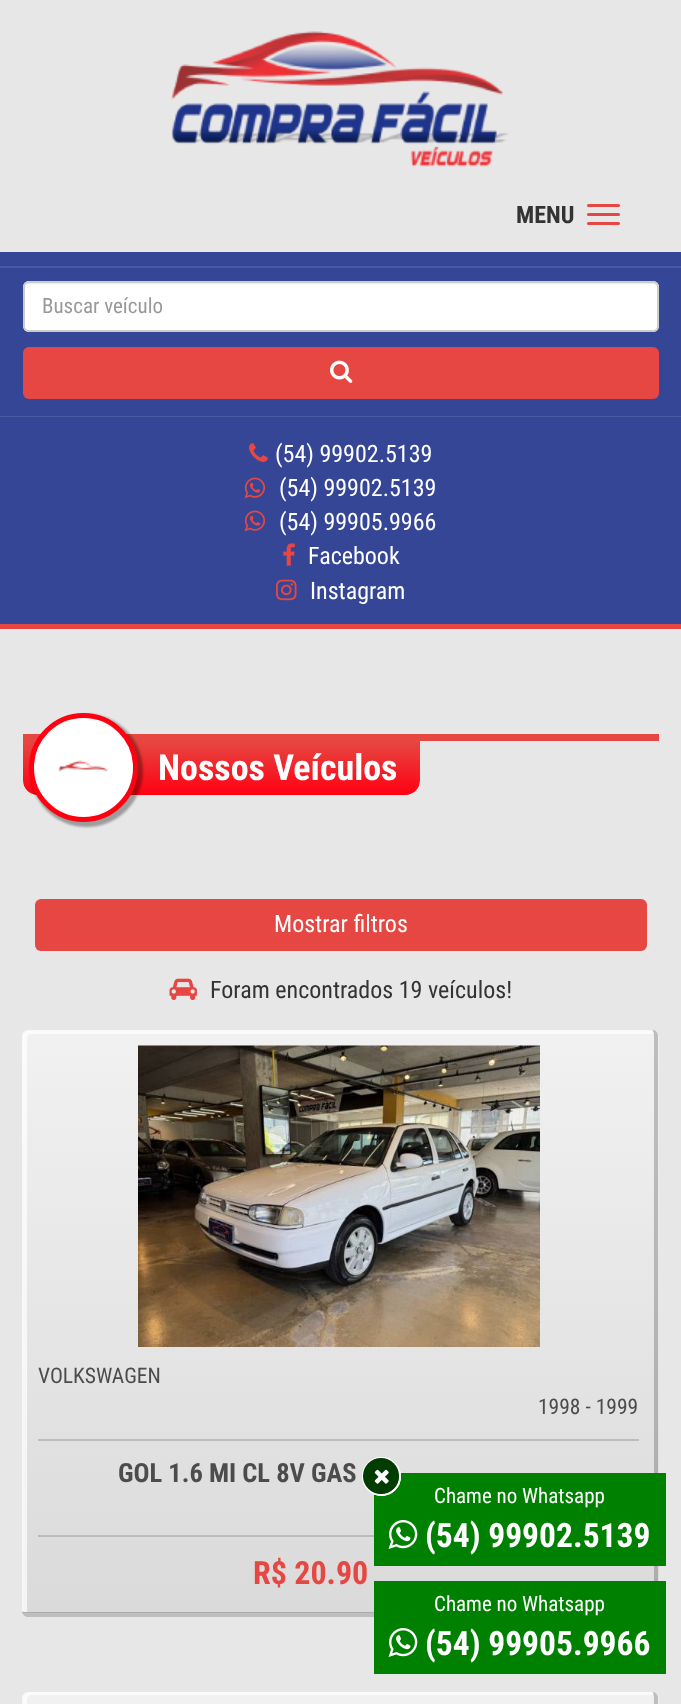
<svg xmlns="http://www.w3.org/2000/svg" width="681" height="1704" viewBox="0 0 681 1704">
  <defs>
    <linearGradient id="g1" gradientUnits="userSpaceOnUse" x1="221" y1="741" x2="221" y2="795"><stop offset="0" stop-color="#e64742"/><stop offset="1" stop-color="#f01"/></linearGradient>
    <clipPath id="clip1"><rect x="23" y="1031" width="636" height="586" rx="6"/></clipPath>
    <linearGradient id="g2" gradientUnits="userSpaceOnUse" x1="338" y1="1031" x2="338" y2="1613"><stop offset="0" stop-color="#f1f1f1"/><stop offset="1" stop-color="#dadada"/></linearGradient>
    <linearGradient id="g3" gradientUnits="userSpaceOnUse" x1="338" y1="1613" x2="338" y2="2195"><stop offset="0" stop-color="#f1f1f1"/><stop offset="1" stop-color="#dadada"/></linearGradient>
    <clipPath id="clip2"><rect x="23" y="1692" width="636" height="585" rx="6"/></clipPath>
    <linearGradient id="g4" gradientUnits="userSpaceOnUse" x1="338" y1="1692" x2="338" y2="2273"><stop offset="0" stop-color="#f1f1f1"/><stop offset="1" stop-color="#dadada"/></linearGradient>
  </defs>
  <rect width="100%" height="100%" fill="#e8e7e7"/>
  <image x="171" y="31" width="337" height="136" href="img/1.png"/>
  <rect x="587" y="204" width="33" height="3" rx="1.5" fill="#e64742"/>
  <rect x="587" y="213" width="33" height="3" rx="1.5" fill="#e64742"/>
  <rect x="587" y="222" width="33" height="3" rx="1.5" fill="#e64742"/>
  <path d="M0 252h681v372H0z" fill="#364696"/>
  <path d="M0 624h681v5H0z" fill="#e64742"/>
  <path d="M0 416h681v1H0z" fill="#4a59a1"/>
  <path d="M0 266h681v2H0z" fill="#4a59a1"/>
  <rect x="23" y="281" width="636" height="51" rx="6" fill="#fff"/>
  <path d="M28 284H652C655 284 657 286 657 288C657 285 655 282 652 282H29C26 282 24 285 24 288C24 286 26 284 28 284Z" fill="#ececec"/>
  <rect x="24" y="282" width="634" height="49" rx="5" fill="none" stroke="#ccc" stroke-width="2"/>
  <rect x="23" y="347" width="636" height="52" rx="6" fill="#e64742"/>
  <image x="330" y="360" width="23" height="23" href="img/2.png"/>
  <image x="249" y="443" width="19" height="19" href="img/3.png"/>
  <image x="244" y="477" width="22" height="22" href="img/4.png"/>
  <image x="244" y="510" width="22" height="22" href="img/4.png"/>
  <image x="283" y="543" width="12" height="23" href="img/5.png"/>
  <image x="276" y="579" width="21" height="22" href="img/6.png"/>
  <path d="M23 734h636v7H23z" fill="#e64742"/>
  <path d="M23 741H420V780C420 788.5 413.5 795 405 795H38C29.5 795 23 788.5 23 780Z" fill="url(#g1)"/>
  <rect x="30" y="714" width="113" height="113" rx="56.5" fill="#00000052" filter="blur(1px)"/>
  <circle cx="83.5" cy="767.5" r="52" fill="#fff" stroke="#f01" stroke-width="5"/>
  <image x="58" y="760" width="50" height="12" href="img/7.png"/>
  <rect x="35" y="899" width="612" height="52" rx="6" fill="#e64742"/>
  <image x="169" y="978" width="28" height="23" href="img/8.png"/>
  <g clip-path="url(#clip1)">
    <path d="M29 1031H653C656.5 1031 659 1033.5 659 1037V1613H23V1037C23 1033.5 25.5 1031 29 1031Z" fill="url(#g2)"/>
    <path d="M23 1613h351v4H23z" fill="url(#g3)"/>
  </g>
  <path d="M32 1034H654C654 1032 653 1030 652 1030H28C25 1030 22 1033 22 1036V1611C22 1612 25 1612 28 1612H652H654H27V1038C27 1036 29 1034 32 1034Z" fill="#ffffffb0"/>
  <path d="M28 1030H652C656 1030 658 1033 658 1036V1611C658 1614 656 1617 652 1617H28C25 1617 22 1614 22 1611V1036C22 1033 25 1030 28 1030ZM28 1030H652C653 1030 654 1033 654 1036V1611C654 1612 653 1612 652 1612H28C25 1612 22 1612 22 1611V1036C22 1033 25 1030 28 1030Z" fill="#00000036" fill-rule="evenodd"/>
  <image x="138" y="1045" width="402" height="302" href="img/9.png"/>
  <path d="M38 1439h601v2H38z" fill="#bdbcbc"/>
  <path d="M38 1535h336v2H38z" fill="#bdbcbc"/>
  <g clip-path="url(#clip2)">
    <path d="M29 1692H653C656.5 1692 659 1694.5 659 1698V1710H23V1698C23 1694.5 25.5 1692 29 1692Z" fill="url(#g4)"/>
  </g>
  <path d="M32 1695H654C654 1693 653 1692 652 1692H28C25 1692 22 1695 22 1698V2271C22 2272 25 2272 28 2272H652H654H27V1700C27 1697 29 1695 32 1695Z" fill="#ffffffb0"/>
  <path d="M28 1692H652C656 1692 658 1695 658 1698V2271C658 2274 656 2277 652 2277H28C25 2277 22 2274 22 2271V1698C22 1695 25 1692 28 1692ZM28 1692H652C653 1692 654 1695 654 1698V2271C654 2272 653 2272 652 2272H28C25 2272 22 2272 22 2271V1698C22 1695 25 1692 28 1692Z" fill="#00000036" fill-rule="evenodd"/>
  <path d="M374 1473h292v93H374z" fill="#008000"/>
  <circle cx="381.5" cy="1476.5" r="18.5" fill="none" stroke="#fff" stroke-width="2"/>
  <image x="388" y="1520" width="30" height="29" href="img/10.png"/>
  <path d="M374 1581h292v93H374z" fill="#008000"/>
  <circle cx="381.5" cy="1476.5" r="18.5" fill="none" stroke="#fff" stroke-width="2"/>
  <circle cx="381" cy="1476" r="18" fill="#013c01"/>
  <image x="374" y="1469" width="15" height="15" href="img/11.png"/>
  <image x="388" y="1628" width="30" height="29" href="img/10.png"/>
  <text x="516" y="223" font-family="Roboto Condensed" font-size="24" font-weight="bold" fill="#333">MENU</text>
  <text x="42" y="313" font-family="Roboto Condensed" font-size="21" fill="#999">Buscar veículo</text>
  <g font-family="Roboto Condensed" font-size="24" fill="#fff">
    <text x="275" y="462">(54) 99902.5139</text>
    <text x="279" y="496">(54) 99902.5139</text>
    <text x="279" y="530">(54) 99905.9966</text>
    <text x="308" y="564">Facebook</text>
    <text x="310" y="599">Instagram</text>
  </g>
  <text x="158" y="780" font-family="Roboto Condensed" font-size="36" font-weight="bold" fill="#fff">Nossos Veículos</text>
  <text x="274" y="932" font-family="Roboto Condensed" font-size="24" fill="#fff">Mostrar filtros</text>
  <text x="210" y="998" font-family="Roboto Condensed" font-size="24" fill="#333">Foram encontrados 19 veículos!</text>
  <g font-family="Roboto Condensed" font-size="21.5" fill="#4c4c4c">
    <text x="38" y="1383">VOLKSWAGEN</text>
    <text x="538" y="1414">1998 - 1999</text>
  </g>
  <text x="118" y="1482" font-family="Roboto Condensed" font-size="26.5" font-weight="bold" fill="#4c4c4c">GOL 1.6 MI CL 8V GAS</text>
  <text x="253" y="1584" font-family="Roboto Condensed" font-size="32" font-weight="bold" fill="#e64742">R$ 20.90</text>
  <text x="434" y="1503" font-family="Roboto Condensed" font-size="21" fill="#fff">Chame no Whatsapp</text>
  <text x="425" y="1547" font-family="Roboto Condensed" font-size="33.5" font-weight="bold" fill="#fff">(54) 99902.5139</text>
  <text x="434" y="1611" font-family="Roboto Condensed" font-size="21" fill="#fff">Chame no Whatsapp</text>
  <text x="425" y="1655" font-family="Roboto Condensed" font-size="33.5" font-weight="bold" fill="#fff">(54) 99905.9966</text>
</svg>
